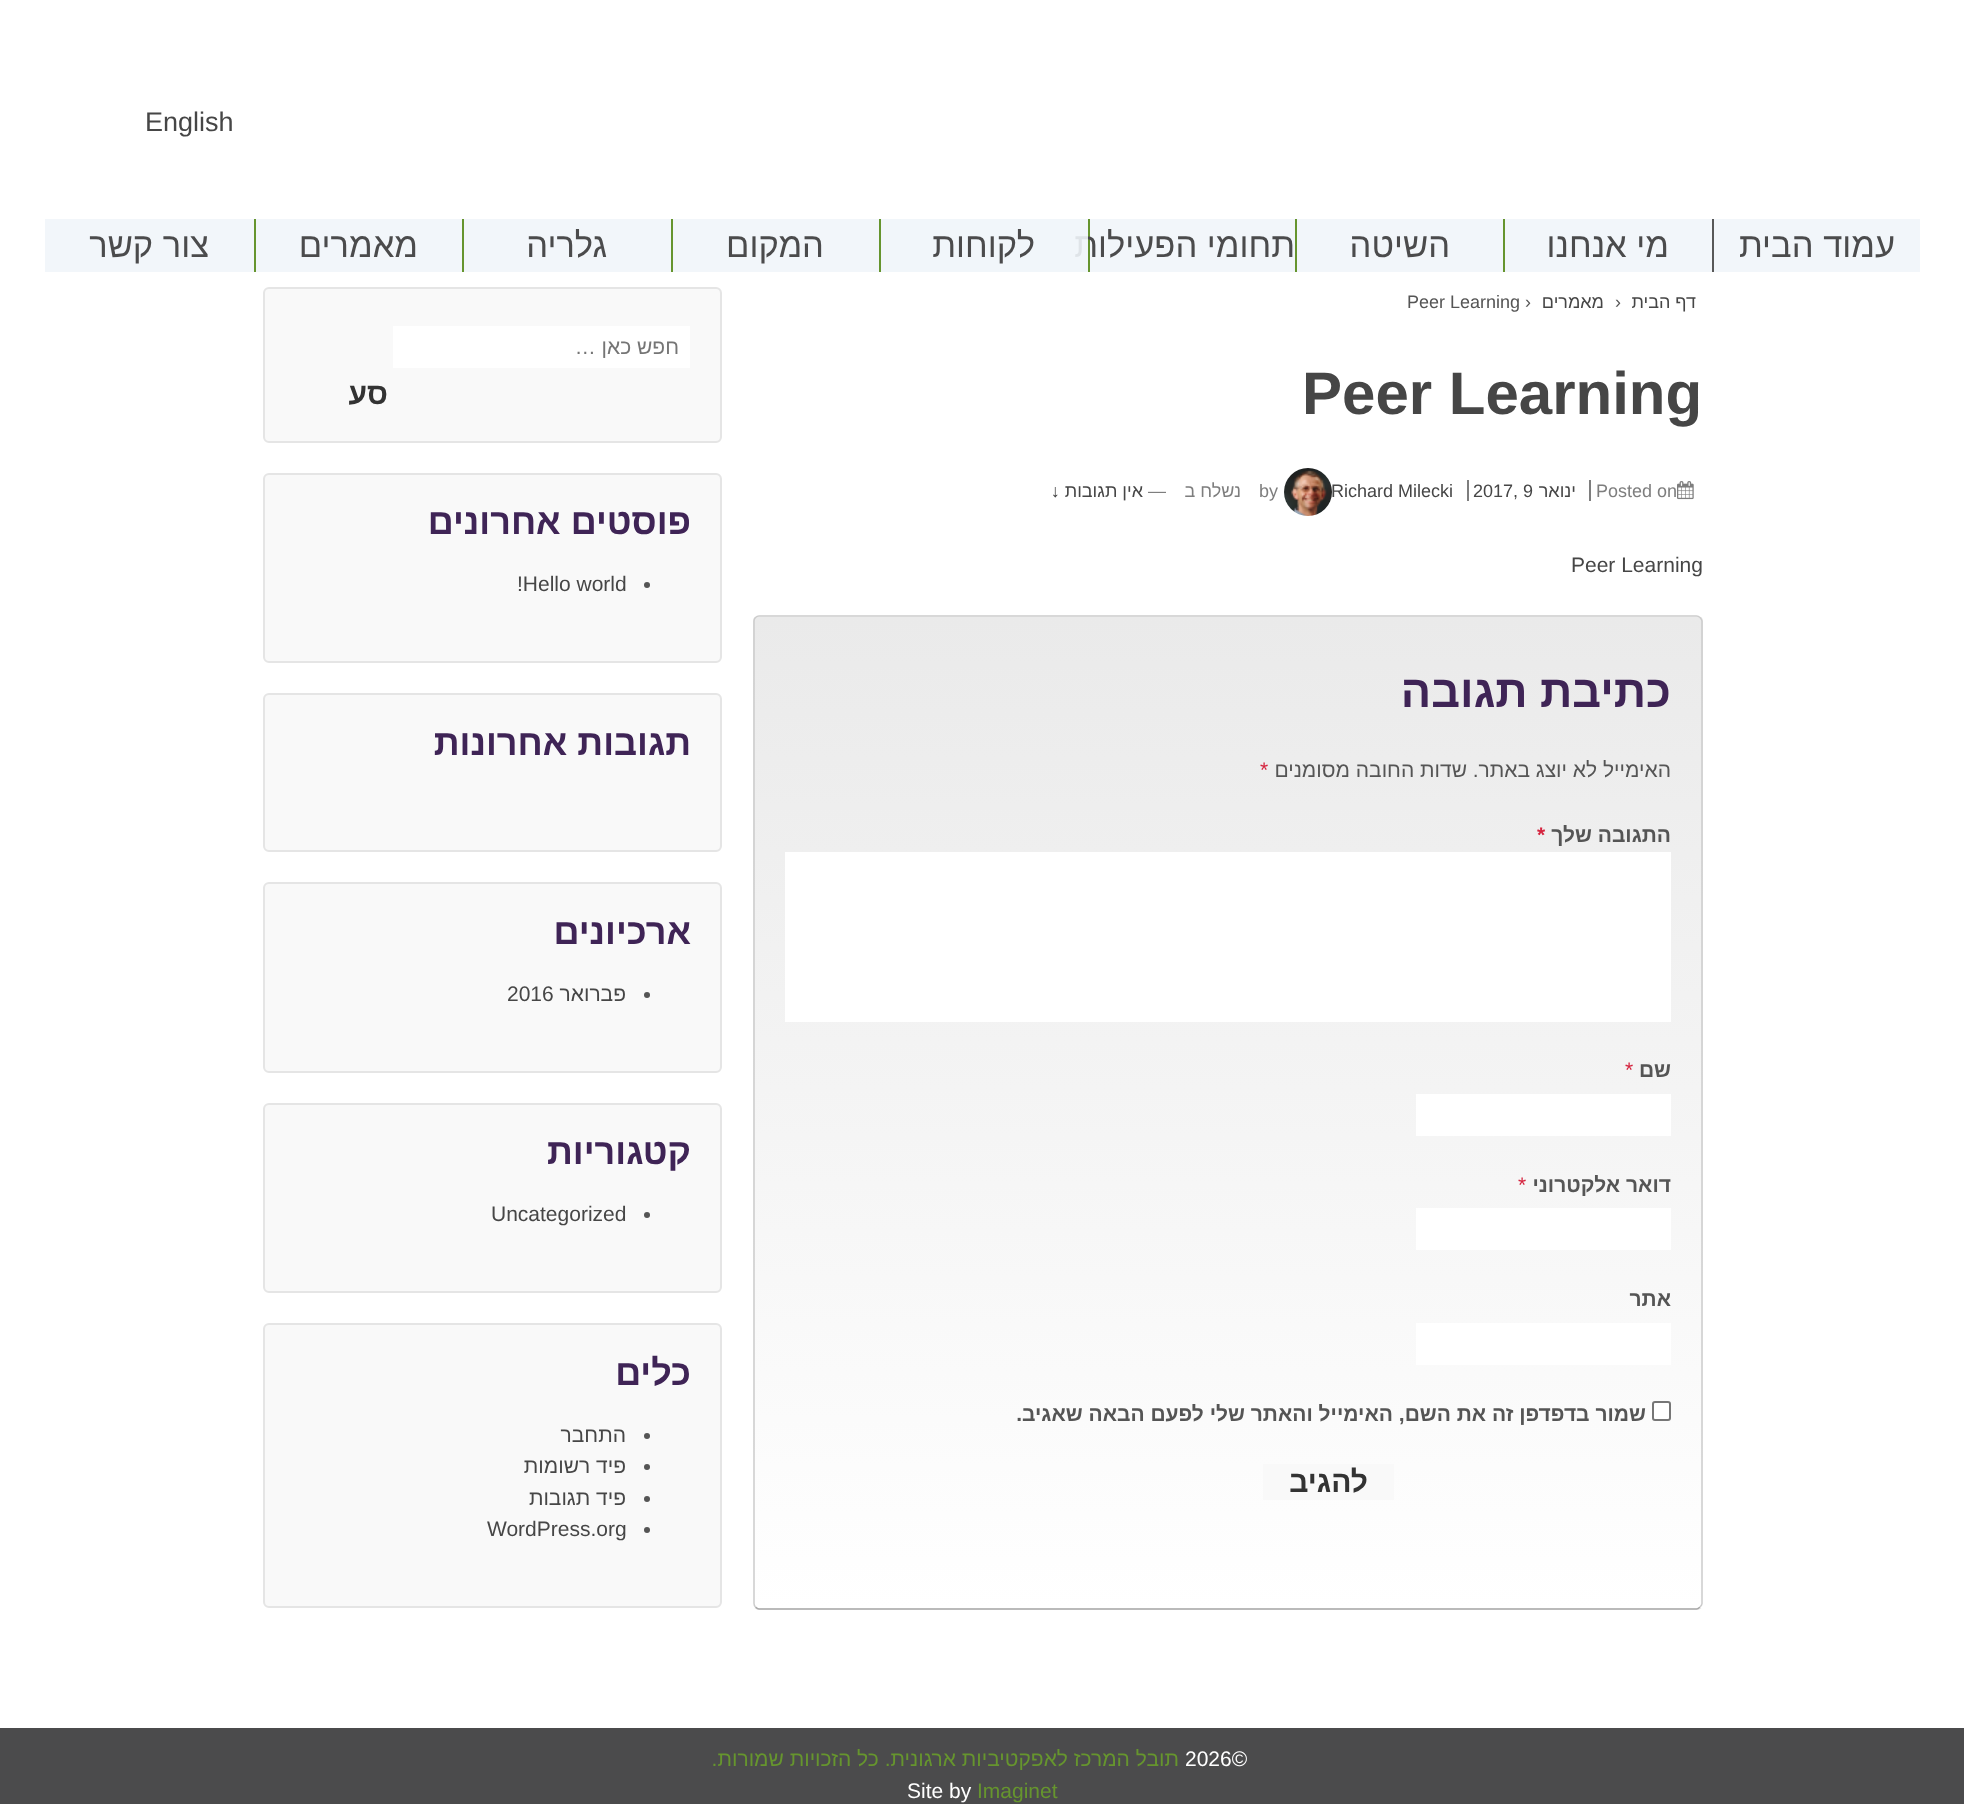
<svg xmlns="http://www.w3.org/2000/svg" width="1964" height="1804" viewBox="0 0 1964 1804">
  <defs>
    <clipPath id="clip1"><rect x="753" y="615" width="950" height="995" rx="6"/></clipPath>
    <linearGradient id="g1" gradientUnits="userSpaceOnUse" x1="1228" y1="1608" x2="1228" y2="617"><stop offset="0" stop-color="#fff"/><stop offset="1" stop-color="#eaeaea"/></linearGradient>
    <linearGradient id="g2" gradientUnits="userSpaceOnUse" x1="1228" y1="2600" x2="1228" y2="1608"><stop offset="0" stop-color="#fff"/><stop offset="1" stop-color="#eaeaea"/></linearGradient>
  </defs>
  <rect width="100%" height="100%" fill="#fff"/>
  <path d="M1714 219h206v53H1714z" fill="#f2f6fa"/>
  <path d="M1712 219h2v53H1712z" fill="#585858"/>
  <path d="M1505 219h207v53H1505z" fill="#f2f6fa"/>
  <path d="M1503 219h2v53H1503z" fill="#66952e"/>
  <path d="M1297 219h206v53H1297z" fill="#f2f6fa"/>
  <path d="M1295 219h2v53H1295z" fill="#66952e"/>
  <path d="M1090 219h205v53H1090z" fill="#f2f6fa"/>
  <path d="M1088 219h2v53H1088z" fill="#66952e"/>
  <path d="M879 219h2v53H879z" fill="#66952e"/>
  <path d="M673 219h206v53H673z" fill="#f2f6fa"/>
  <path d="M671 219h2v53H671z" fill="#66952e"/>
  <path d="M464 219h207v53H464z" fill="#f2f6fa"/>
  <path d="M462 219h2v53H462z" fill="#66952e"/>
  <path d="M256 219h206v53H256z" fill="#f2f6fa"/>
  <path d="M254 219h2v53H254z" fill="#66952e"/>
  <path d="M45 219h209v53H45z" fill="#f2f6fa"/>
  <image x="1677" y="481" width="17" height="19" href="img/1.png"/>
  <path d="M1589 480h2v21H1589z" fill="#7e7e7e"/>
  <path d="M1467 480h2v21H1467z" fill="#7e7e7e"/>
  <image x="1284" y="468" width="48" height="48" href="img/2.png"/>
  <g clip-path="url(#clip1)">
    <path d="M753 617h950v991H753z" fill="url(#g1)"/>
    <path d="M753 1608h950v2H753z" fill="url(#g2)"/>
  </g>
  <path d="M1700 1607C1699 1608 1698 1609 1696.5 1609H759C757.5 1609 756.5 1608 755.5 1607" fill="none" stroke="#aaa" stroke-width="1.5"/>
  <path d="M755.5 1607C754.5 1606 754 1605 754 1603.5V621C754 619.5 754.5 618.5 755.5 617.5C756.5 616.5 757.5 616 759 616H1696.5C1698 616 1699 616.5 1700 617.5C1701 618.5 1702 619.5 1702 621V1603.5C1702 1605 1701 1606 1700 1607" fill="none" stroke="#ccc" stroke-width="1.5"/>
  <path d="M785 852h886v170H785z" fill="#fff"/>
  <path d="M1416 1094h255v42H1416z" fill="#fff"/>
  <path d="M1416 1208h255v42H1416z" fill="#fff"/>
  <path d="M1416 1323h255v42H1416z" fill="#fff"/>
  <rect x="1653" y="1402" width="17" height="18" rx="2" fill="#fff" stroke="#767676" stroke-width="2"/>
  <path d="M1263 1464h131v36H1263z" fill="#f9f9f9"/>
  <rect x="264" y="288" width="457" height="154" rx="5" fill="#f9f9f9" stroke="#e5e5e5" stroke-width="2"/>
  <path d="M393 326h297v42H393z" fill="#fff"/>
  <rect x="264" y="474" width="457" height="188" rx="5" fill="#f9f9f9" stroke="#e5e5e5" stroke-width="2"/>
  <circle cx="647" cy="585" r="3" fill="#555"/>
  <rect x="264" y="694" width="457" height="157" rx="5" fill="#f9f9f9" stroke="#e5e5e5" stroke-width="2"/>
  <rect x="264" y="883" width="457" height="189" rx="5" fill="#f9f9f9" stroke="#e5e5e5" stroke-width="2"/>
  <circle cx="647" cy="995" r="3" fill="#555"/>
  <rect x="264" y="1104" width="457" height="188" rx="5" fill="#f9f9f9" stroke="#e5e5e5" stroke-width="2"/>
  <circle cx="647" cy="1215" r="3" fill="#555"/>
  <rect x="264" y="1324" width="457" height="283" rx="5" fill="#f9f9f9" stroke="#e5e5e5" stroke-width="2"/>
  <circle cx="647" cy="1436" r="3" fill="#555"/>
  <circle cx="647" cy="1467" r="3" fill="#555"/>
  <circle cx="647" cy="1499" r="3" fill="#555"/>
  <circle cx="647" cy="1530" r="3" fill="#555"/>
  <path d="M0 1728h1964v76H0z" fill="#4b4b4c"/>
  <text x="145" y="131" font-family="Liberation Sans" font-size="27" fill="#464646">English</text>
  <g font-family="Liberation Sans" font-size="34.5" direction="rtl" fill="#4b4b4c">
    <text x="1895" y="257">עמוד הבית</text>
    <text x="1669" y="257">מי אנחנו</text>
    <text x="1450" y="257">השיטה</text>
    <text x="1295" y="257">תחומי הפעילות</text>
  </g>
  <path d="M881 219h207v53H881z" fill="#f0f5f9e6"/>
  <g font-family="Liberation Sans" font-size="34.5" direction="rtl" fill="#4b4b4c">
    <text x="1035" y="257">לקוחות</text>
    <text x="824" y="257">המקום</text>
    <text x="607" y="257">גלריה</text>
    <text x="418" y="257">מאמרים</text>
    <text x="209" y="257">צור קשר</text>
  </g>
  <text x="1696" y="308" font-family="Liberation Sans" font-size="18" direction="rtl" fill="#464646">דף הבית</text>
  <text x="1615" y="308" font-family="Liberation Sans" font-size="18" fill="#555">›</text>
  <text x="1604" y="308" font-family="Liberation Sans" font-size="18" direction="rtl" fill="#464646">מאמרים</text>
  <g font-family="Liberation Sans" font-size="18" fill="#555">
    <text x="1525" y="308">›</text>
    <text x="1407" y="308">Peer Learning</text>
  </g>
  <text x="1302" y="414" font-family="Liberation Sans" font-size="60" font-weight="bold" fill="#464646">Peer Learning</text>
  <text x="1596" y="497" font-family="Liberation Sans" font-size="18" fill="#7e7e7e">Posted on</text>
  <text x="1576" y="497" font-family="Liberation Sans" font-size="18" direction="rtl" fill="#464646">ינואר</text>
  <g font-family="Liberation Sans" font-size="18" fill="#464646">
    <text x="1473" y="497">2017, 9</text>
    <text x="1331" y="497">Richard Milecki</text>
  </g>
  <text x="1259" y="497" font-family="Liberation Sans" font-size="18" fill="#7e7e7e">by</text>
  <text x="1241" y="497" font-family="Liberation Sans" font-size="18" direction="rtl" fill="#7e7e7e">נשלח ב</text>
  <text x="1148" y="497" font-family="Liberation Sans" font-size="18" fill="#7e7e7e">—</text>
  <text x="1143" y="497" font-family="Liberation Sans" font-size="18" direction="rtl" fill="#464646">אין תגובות ↓</text>
  <text x="1571" y="572" font-family="Liberation Sans" font-size="21" fill="#464646">Peer Learning</text>
  <text x="1671" y="707" font-family="Liberation Sans" font-size="45" font-weight="bold" direction="rtl" fill="#3f2456">כתיבת תגובה</text>
  <g font-family="Liberation Sans" font-size="21" direction="rtl" fill="#555">
    <text x="1671" y="777">האימייל לא יוצג באתר.</text>
    <text x="1467" y="777">שדות החובה מסומנים</text>
  </g>
  <text x="1260" y="777" font-family="Liberation Sans" font-size="21" fill="#d5243f">*</text>
  <text x="1671" y="842" font-family="Liberation Sans" font-size="21" font-weight="bold" direction="rtl" fill="#555">התגובה שלך</text>
  <text x="1537" y="842" font-family="Liberation Sans" font-size="21" font-weight="bold" fill="#d5243f">*</text>
  <text x="1671" y="1077" font-family="Liberation Sans" font-size="21" font-weight="bold" direction="rtl" fill="#555">שם</text>
  <text x="1625" y="1077" font-family="Liberation Sans" font-size="21" fill="#d5243f">*</text>
  <text x="1671" y="1192" font-family="Liberation Sans" font-size="21" font-weight="bold" direction="rtl" fill="#555">דואר אלקטרוני</text>
  <text x="1518" y="1192" font-family="Liberation Sans" font-size="21" fill="#d5243f">*</text>
  <g font-family="Liberation Sans" font-size="21" font-weight="bold" direction="rtl" fill="#555">
    <text x="1671" y="1306">אתר</text>
    <text x="1646" y="1421">שמור בדפדפן זה את השם, האימייל והאתר שלי לפעם הבאה שאגיב.</text>
  </g>
  <text x="1368" y="1492" font-family="Liberation Sans" font-size="30" font-weight="bold" direction="rtl" fill="#333">להגיב</text>
  <text x="679" y="354" font-family="Liberation Sans" font-size="21" direction="rtl" fill="#757575">חפש כאן …</text>
  <text x="388" y="404" font-family="Liberation Sans" font-size="30" font-weight="bold" direction="rtl" fill="#333">סע</text>
  <text x="691" y="534" font-family="Liberation Sans" font-size="36" font-weight="bold" direction="rtl" fill="#3f2456">פוסטים אחרונים</text>
  <text x="517" y="591" font-family="Liberation Sans" font-size="21" fill="#464646">!Hello world</text>
  <g font-family="Liberation Sans" font-size="36" font-weight="bold" direction="rtl" fill="#3f2456">
    <text x="691" y="755">תגובות אחרונות</text>
    <text x="691" y="944">ארכיונים</text>
  </g>
  <text x="626" y="1001" font-family="Liberation Sans" font-size="21" direction="rtl" fill="#464646">פברואר</text>
  <text x="507" y="1001" font-family="Liberation Sans" font-size="21" fill="#464646">2016</text>
  <text x="691" y="1164" font-family="Liberation Sans" font-size="36" font-weight="bold" direction="rtl" fill="#3f2456">קטגוריות</text>
  <text x="491" y="1221" font-family="Liberation Sans" font-size="21" fill="#464646">Uncategorized</text>
  <text x="691" y="1385" font-family="Liberation Sans" font-size="36" font-weight="bold" direction="rtl" fill="#3f2456">כלים</text>
  <g font-family="Liberation Sans" font-size="21" direction="rtl" fill="#464646">
    <text x="626" y="1442">התחבר</text>
    <text x="626" y="1473">פיד רשומות</text>
    <text x="626" y="1505">פיד תגובות</text>
  </g>
  <text x="487" y="1536" font-family="Liberation Sans" font-size="21" fill="#464646">WordPress.org</text>
  <text x="1185" y="1766" font-family="Liberation Sans" font-size="21" fill="#fff">2026©</text>
  <text x="1179" y="1766" font-family="Liberation Sans" font-size="21" direction="rtl" fill="#66952e">תובל המרכז לאפקטיביות ארגונית. כל הזכויות שמורות.</text>
  <text x="977" y="1798" font-family="Liberation Sans" font-size="21" fill="#66952e">Imaginet</text>
  <text x="907" y="1798" font-family="Liberation Sans" font-size="21" fill="#fff">Site by</text>
</svg>
